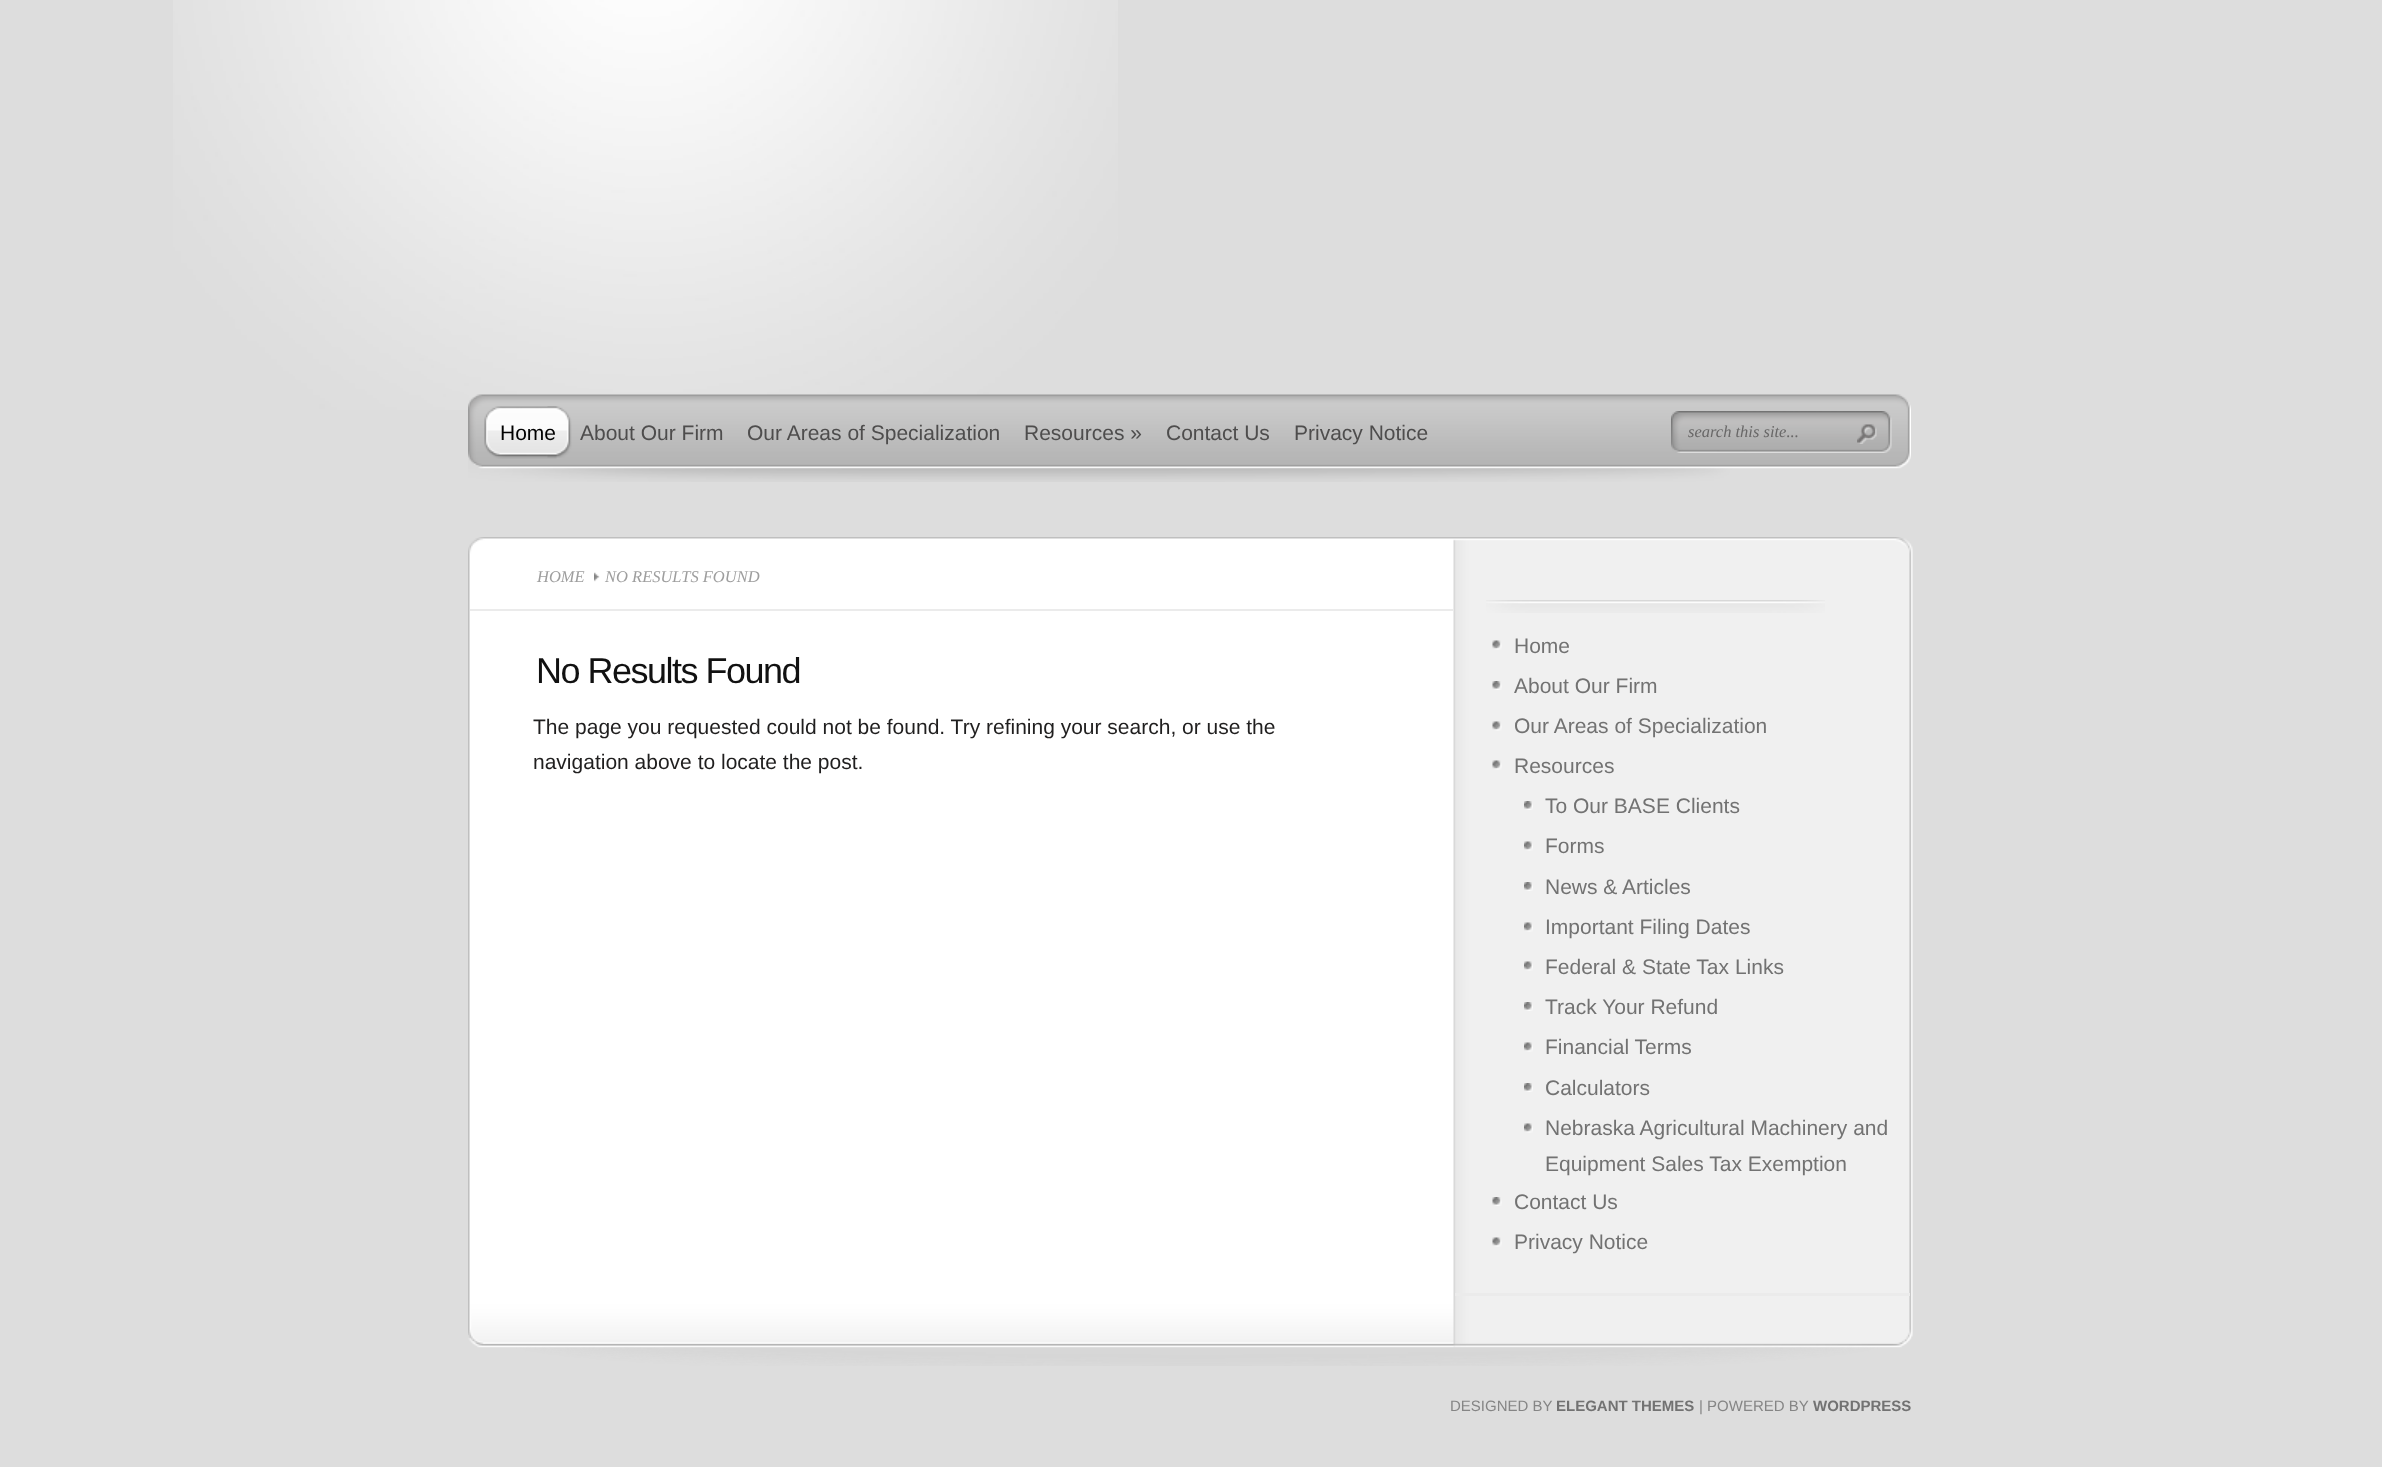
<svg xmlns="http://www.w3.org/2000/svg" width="2382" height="1467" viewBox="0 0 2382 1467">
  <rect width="100%" height="100%" fill="#ddd"/>
  <image x="173" y="0" width="945" height="410" href="img/1.png"/>
  <image x="468" y="394" width="1443" height="88" href="img/2.png"/>
  <image x="547" y="406" width="25" height="52" href="img/3.png"/>
  <image x="484" y="406" width="73" height="53" href="img/4.png"/>
  <image x="1671" y="411" width="221" height="42" href="img/5.png"/>
  <image x="1857" y="424" width="20" height="20" href="img/6.png"/>
  <image x="468" y="537" width="1445" height="24" href="img/7.png"/>
  <image x="468" y="561" width="1445" height="735" href="img/8.png"/>
  <path d="M470 609h984v2H470z" fill="#ebebeb"/>
  <image x="594" y="572" width="6" height="10" href="img/9.png"/>
  <path d="M1455 1293h455v3H1455z" fill="#ebebeb"/>
  <image x="1486" y="600" width="339" height="13" href="img/10.png"/>
  <image x="1492" y="640" width="10" height="10" href="img/11.png"/>
  <image x="1492" y="681" width="10" height="9" href="img/12.png"/>
  <image x="1492" y="721" width="10" height="10" href="img/11.png"/>
  <image x="1492" y="760" width="10" height="10" href="img/11.png"/>
  <image x="1524" y="801" width="9" height="9" href="img/13.png"/>
  <image x="1524" y="841" width="9" height="10" href="img/14.png"/>
  <image x="1524" y="882" width="9" height="9" href="img/13.png"/>
  <image x="1524" y="922" width="9" height="10" href="img/14.png"/>
  <image x="1524" y="961" width="9" height="10" href="img/14.png"/>
  <image x="1524" y="1002" width="9" height="9" href="img/13.png"/>
  <image x="1524" y="1042" width="9" height="10" href="img/14.png"/>
  <image x="1524" y="1083" width="9" height="9" href="img/13.png"/>
  <image x="1524" y="1123" width="9" height="10" href="img/14.png"/>
  <image x="1492" y="1197" width="10" height="9" href="img/12.png"/>
  <image x="1492" y="1237" width="10" height="10" href="img/11.png"/>
  <image x="468" y="1296" width="1445" height="70" href="img/15.png"/>
  <g font-family="Liberation Sans" font-size="21" fill="#4e4d4d">
    <text x="580" y="440">About Our Firm</text>
    <text x="747" y="440">Our Areas of Specialization</text>
    <text x="1294" y="440">Privacy Notice</text>
  </g>
  <text x="500" y="440" font-family="Liberation Sans" font-size="21" fill="#000">Home</text>
  <g font-family="Liberation Sans" font-size="21" fill="#4e4d4d">
    <text x="1024" y="440">Resources »</text>
    <text x="1166" y="440">Contact Us</text>
  </g>
  <text x="1688" y="437" font-family="Liberation Serif" font-size="16.5" font-style="italic" fill="#686767">search this site...</text>
  <g font-family="Liberation Serif" font-size="16.5" font-style="italic" fill="#9e9e9e">
    <text x="537" y="582">HOME</text>
    <text x="605" y="582">NO RESULTS FOUND</text>
  </g>
  <text x="536" y="683" font-family="Liberation Sans" font-size="36" letter-spacing="-1.5" fill="#111">No Results Found</text>
  <g font-family="Liberation Sans" font-size="21" fill="#201f1f">
    <text x="533" y="734">The page you requested could not be found. Try refining your search, or use the</text>
    <text x="533" y="769">navigation above to locate the post.</text>
  </g>
  <g font-family="Liberation Sans" font-size="21" fill="#727272">
    <text x="1514" y="653">Home</text>
    <text x="1514" y="693">About Our Firm</text>
    <text x="1514" y="733">Our Areas of Specialization</text>
    <text x="1514" y="773">Resources</text>
    <text x="1545" y="813">To Our BASE Clients</text>
    <text x="1545" y="853">Forms</text>
    <text x="1545" y="894">News &amp; Articles</text>
    <text x="1545" y="934">Important Filing Dates</text>
    <text x="1545" y="974">Federal &amp; State Tax Links</text>
    <text x="1545" y="1014">Track Your Refund</text>
    <text x="1545" y="1054">Financial Terms</text>
    <text x="1545" y="1095">Calculators</text>
    <text x="1545" y="1135">Nebraska Agricultural Machinery and</text>
    <text x="1545" y="1171">Equipment Sales Tax Exemption</text>
    <text x="1514" y="1209">Contact Us</text>
    <text x="1514" y="1249">Privacy Notice</text>
  </g>
  <text x="1450" y="1411" font-family="Liberation Sans" font-size="15" fill="#858585">DESIGNED BY</text>
  <text x="1556" y="1411" font-family="Liberation Sans" font-size="15" font-weight="bold" fill="#727272">ELEGANT THEMES</text>
  <text x="1699" y="1411" font-family="Liberation Sans" font-size="15" fill="#858585">| POWERED BY</text>
  <text x="1813" y="1411" font-family="Liberation Sans" font-size="15" font-weight="bold" fill="#727272">WORDPRESS</text>
</svg>
